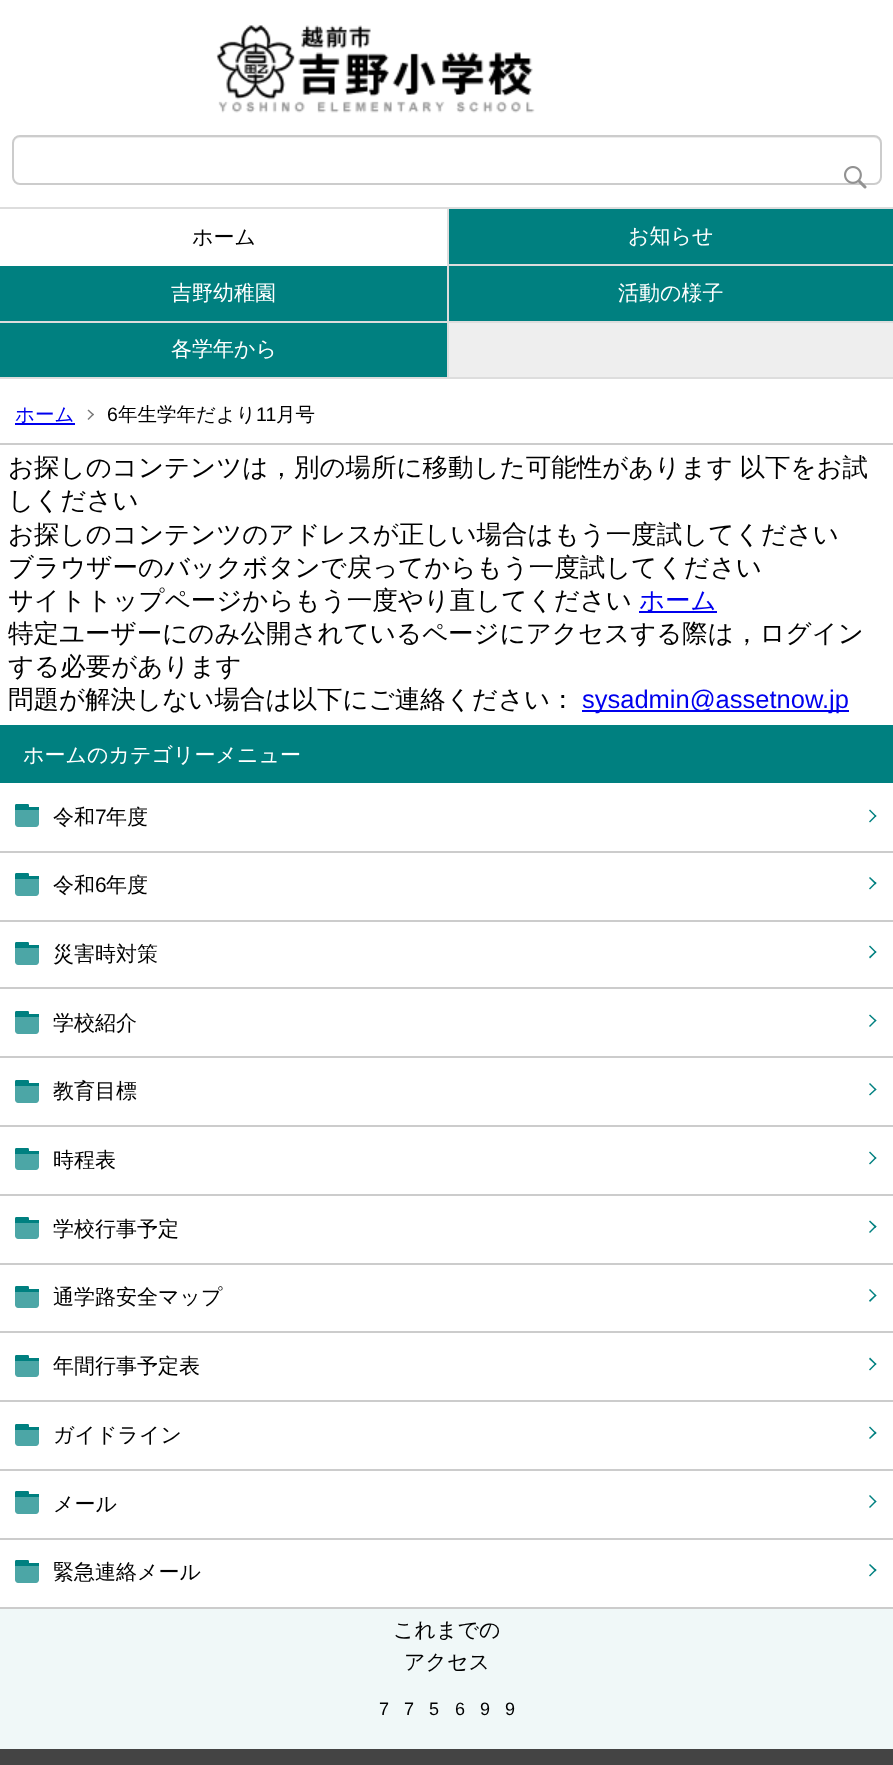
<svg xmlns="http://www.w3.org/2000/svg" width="893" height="1765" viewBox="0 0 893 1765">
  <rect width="100%" height="100%" fill="#fff"/>
  <image x="216" y="25" width="319" height="88" href="img/1.png"/>
  <path d="M20 138H874C878 138 880 141 880 144V178L879 181C880 180 881 179 881 177V143C881 140 878 137 875 137H20C17 137 14 140 14 143V144C14 141 16 138 20 138Z" fill="#ececec"/>
  <rect x="13" y="136" width="868" height="48" rx="7" fill="none" stroke="#ccc" stroke-width="2"/>
  <image x="844" y="166" width="23" height="23" href="img/2.png"/>
  <path d="M449 323h444v54H449z" fill="#eee"/>
  <path d="M0 207h893v2H0z" fill="#ddd"/>
  <path d="M447 264h446v2H447z" fill="#ddd"/>
  <path d="M0 321h893v2H0z" fill="#ddd"/>
  <path d="M0 377h893v2H0z" fill="#ddd"/>
  <path d="M447 209h2v169H447z" fill="#ddd"/>
  <path d="M449 209h444v55H449z" fill="#008080"/>
  <path d="M0 266h447v55H0z" fill="#008080"/>
  <path d="M449 266h444v55H449z" fill="#008080"/>
  <path d="M0 323h447v54H0z" fill="#008080"/>
  <path d="M0 443h893v2H0z" fill="#ccc"/>
  <path d="M15 423h60v2H15z" fill="#00e"/>
  <path d="M88.5 409.5L94 414.5L93 415.5L87.5 410.5Z" fill="#777"/>
  <path d="M93 413.5L94 414.5L88.5 420L87.5 419Z" fill="#777"/>
  <path d="M639 611h78v2H639z" fill="#00e"/>
  <path d="M582 710h267v2H582z" fill="#00e"/>
  <path d="M0 1609h893v140H0z" fill="#f0f8f8"/>
  <path d="M0 725h893v58H0z" fill="#008080"/>
  <path d="M0 1607h893v2H0z" fill="#ccc"/>
  <path d="M16.5 804H27.5C28.5 804 29 804.5 29 805.5V809H15V805.5C15 804.5 15.5 804 16.5 804Z" fill="#008080"/>
  <path d="M15 807H37.5C38.5 807 39 807.5 39 808.5V824C39 825.5 37.5 827 36 827H18C16.5 827 15 825.5 15 824Z" fill="#008080b3"/>
  <path d="M15 807h24v3H15z" fill="#008080"/>
  <path d="M870 809.5L876.5 816L875.5 817L869 810.5Z" fill="#008080"/>
  <path d="M875.5 815L876.5 816L870 822.5L869 821.5Z" fill="#008080"/>
  <path d="M0 851h893v2H0z" fill="#ccc"/>
  <path d="M16.5 873H27.5C28.5 873 29 873.5 29 874.5V878H15V874.5C15 873.5 15.5 873 16.5 873Z" fill="#008080"/>
  <path d="M15 876H37.5C38.5 876 39 876.5 39 877.5V893C39 894.5 37.5 896 36 896H18C16.5 896 15 894.5 15 893Z" fill="#008080b3"/>
  <path d="M15 876h24v3H15z" fill="#008080"/>
  <path d="M870 877L876.5 883L875.5 884.5L869 878Z" fill="#008080"/>
  <path d="M875.5 882L876.5 883L870 889.5L869 888.5Z" fill="#008080"/>
  <path d="M0 920h893v2H0z" fill="#ccc"/>
  <path d="M16.5 942H27.5C28.5 942 29 942.5 29 943.5V947H15V943.5C15 942.5 15.5 942 16.5 942Z" fill="#008080"/>
  <path d="M15 945H37.5C38.5 945 39 945.5 39 946.5V962C39 963.5 37.5 965 36 965H18C16.5 965 15 963.5 15 962Z" fill="#008080b3"/>
  <path d="M15 945h24v3H15z" fill="#008080"/>
  <path d="M870 945.5L876.5 952L875.5 953L869 946.5Z" fill="#008080"/>
  <path d="M875.5 951L876.5 952L870 958.5L869 957Z" fill="#008080"/>
  <path d="M0 987h893v2H0z" fill="#ccc"/>
  <path d="M16.5 1011H27.5C28.5 1011 29 1011.5 29 1012.5V1016H15V1012.5C15 1011.5 15.5 1011 16.5 1011Z" fill="#008080"/>
  <path d="M15 1014H37.5C38.5 1014 39 1014.5 39 1015.5V1031C39 1032.5 37.5 1034 36 1034H18C16.5 1034 15 1032.5 15 1031Z" fill="#008080b3"/>
  <path d="M15 1014h24v3H15z" fill="#008080"/>
  <path d="M870 1014.5L876.5 1020.5L875.5 1021.5L869 1015.5Z" fill="#008080"/>
  <path d="M875.5 1019.5L876.5 1020.5L870 1027L869 1026Z" fill="#008080"/>
  <path d="M0 1056h893v2H0z" fill="#ccc"/>
  <path d="M16.5 1080H27.5C28.5 1080 29 1080.5 29 1081.5V1085H15V1081.5C15 1080.5 15.5 1080 16.5 1080Z" fill="#008080"/>
  <path d="M15 1083H37.5C38.5 1083 39 1083.5 39 1084.5V1100C39 1101.5 37.5 1103 36 1103H18C16.5 1103 15 1101.5 15 1100Z" fill="#008080b3"/>
  <path d="M15 1083h24v3H15z" fill="#008080"/>
  <path d="M870 1083L876.5 1089.5L875.5 1090.5L869 1084Z" fill="#008080"/>
  <path d="M875.5 1088.5L876.5 1089.5L870 1095.5L869 1094.5Z" fill="#008080"/>
  <path d="M0 1125h893v2H0z" fill="#ccc"/>
  <path d="M16.5 1148H27.5C28.5 1148 29 1148.5 29 1149.5V1153H15V1149.5C15 1148.5 15.5 1148 16.5 1148Z" fill="#008080"/>
  <path d="M15 1151H37.5C38.5 1151 39 1151.5 39 1152.5V1167C39 1168.5 37.5 1170 36 1170H18C16.5 1170 15 1168.5 15 1167Z" fill="#008080b3"/>
  <path d="M15 1151h24v3H15z" fill="#008080"/>
  <path d="M870 1151.5L876.5 1158L875.5 1159L869 1152.5Z" fill="#008080"/>
  <path d="M875.5 1157L876.5 1158L870 1164.5L869 1163.5Z" fill="#008080"/>
  <path d="M0 1194h893v2H0z" fill="#ccc"/>
  <path d="M16.5 1217H27.5C28.5 1217 29 1217.5 29 1218.5V1222H15V1218.5C15 1217.5 15.5 1217 16.5 1217Z" fill="#008080"/>
  <path d="M15 1220H37.5C38.5 1220 39 1220.5 39 1221.5V1236C39 1237.5 37.5 1239 36 1239H18C16.5 1239 15 1237.5 15 1236Z" fill="#008080b3"/>
  <path d="M15 1220h24v3H15z" fill="#008080"/>
  <path d="M870 1220.5L876.5 1226.5L875.5 1228L869 1221.5Z" fill="#008080"/>
  <path d="M875.5 1225.5L876.5 1226.5L870 1233L869 1232Z" fill="#008080"/>
  <path d="M0 1263h893v2H0z" fill="#ccc"/>
  <path d="M16.5 1286H27.5C28.5 1286 29 1286.5 29 1287.5V1291H15V1287.5C15 1286.5 15.5 1286 16.5 1286Z" fill="#008080"/>
  <path d="M15 1289H37.5C38.5 1289 39 1289.5 39 1290.5V1305C39 1306.5 37.5 1308 36 1308H18C16.5 1308 15 1306.5 15 1305Z" fill="#008080b3"/>
  <path d="M15 1289h24v3H15z" fill="#008080"/>
  <path d="M870 1289L876.5 1295.5L875.5 1296.5L869 1290Z" fill="#008080"/>
  <path d="M875.5 1294.5L876.5 1295.5L870 1302L869 1300.5Z" fill="#008080"/>
  <path d="M0 1331h893v2H0z" fill="#ccc"/>
  <path d="M16.5 1355H27.5C28.5 1355 29 1355.5 29 1356.5V1360H15V1356.5C15 1355.5 15.5 1355 16.5 1355Z" fill="#008080"/>
  <path d="M15 1358H37.5C38.5 1358 39 1358.5 39 1359.5V1374C39 1375.5 37.5 1377 36 1377H18C16.5 1377 15 1375.5 15 1374Z" fill="#008080b3"/>
  <path d="M15 1358h24v3H15z" fill="#008080"/>
  <path d="M870 1357.5L876.5 1364L875.5 1365L869 1359Z" fill="#008080"/>
  <path d="M875.5 1363L876.5 1364L870 1370.5L869 1369.5Z" fill="#008080"/>
  <path d="M0 1400h893v2H0z" fill="#ccc"/>
  <path d="M16.5 1424H27.5C28.5 1424 29 1424.5 29 1425.5V1429H15V1425.5C15 1424.5 15.5 1424 16.5 1424Z" fill="#008080"/>
  <path d="M15 1427H37.5C38.5 1427 39 1427.5 39 1428.5V1443C39 1444.5 37.5 1446 36 1446H18C16.5 1446 15 1444.5 15 1443Z" fill="#008080b3"/>
  <path d="M15 1427h24v3H15z" fill="#008080"/>
  <path d="M870 1426.5L876.5 1433L875.5 1434L869 1427.5Z" fill="#008080"/>
  <path d="M875.5 1431.5L876.5 1433L870 1439L869 1438Z" fill="#008080"/>
  <path d="M0 1469h893v2H0z" fill="#ccc"/>
  <path d="M16.5 1491H27.5C28.5 1491 29 1491.5 29 1492.5V1496H15V1492.5C15 1491.5 15.5 1491 16.5 1491Z" fill="#008080"/>
  <path d="M15 1494H37.5C38.5 1494 39 1494.5 39 1495.5V1511C39 1512.5 37.5 1514 36 1514H18C16.5 1514 15 1512.5 15 1511Z" fill="#008080b3"/>
  <path d="M15 1494h24v3H15z" fill="#008080"/>
  <path d="M870 1495L876.5 1501.5L875.5 1502.5L869 1496Z" fill="#008080"/>
  <path d="M875.5 1500.5L876.5 1501.5L870 1508L869 1507Z" fill="#008080"/>
  <path d="M0 1538h893v2H0z" fill="#ccc"/>
  <path d="M16.5 1560H27.5C28.5 1560 29 1560.5 29 1561.5V1565H15V1561.5C15 1560.5 15.5 1560 16.5 1560Z" fill="#008080"/>
  <path d="M15 1563H37.5C38.5 1563 39 1563.5 39 1564.5V1580C39 1581.5 37.5 1583 36 1583H18C16.5 1583 15 1581.5 15 1580Z" fill="#008080b3"/>
  <path d="M15 1563h24v3H15z" fill="#008080"/>
  <path d="M870 1564L876.5 1570L875.5 1571.5L869 1565Z" fill="#008080"/>
  <path d="M875.5 1569L876.5 1570L870 1576.5L869 1575.5Z" fill="#008080"/>
  <path d="M0 1749h893v16H0z" fill="#444"/>
  <text x="192" y="244" font-family="WenQuanYi Zen Hei" font-size="21" font-weight="500" fill="#000">ホーム</text>
  <g font-family="WenQuanYi Zen Hei" font-size="21" font-weight="500" fill="#fff">
    <text x="628" y="243">お知らせ</text>
    <text x="171" y="300">吉野幼稚園</text>
    <text x="618" y="300">活動の様子</text>
    <text x="171" y="356">各学年から</text>
  </g>
  <text x="15" y="421" font-family="WenQuanYi Zen Hei" font-size="19.5" font-weight="500" fill="#00e">ホーム</text>
  <text x="107" y="421" font-family="Liberation Sans" font-size="19.5" fill="#000">6</text>
  <text x="118" y="421" font-family="WenQuanYi Zen Hei" font-size="19.5" font-weight="500" fill="#000">年生学年だより</text>
  <text x="256" y="421" font-family="Liberation Sans" font-size="19.5" fill="#000">11</text>
  <text x="276" y="421" font-family="WenQuanYi Zen Hei" font-size="19.5" font-weight="500" fill="#000">月号</text>
  <g font-family="WenQuanYi Zen Hei" font-size="25.5" font-weight="500" fill="#000">
    <text x="8" y="476" word-spacing="-1">お探しのコンテンツは，別の場所に移動した可能性があります 以下をお試</text>
    <text x="8" y="509">しください</text>
    <text x="8" y="543">お探しのコンテンツのアドレスが正しい場合はもう一度試してください</text>
    <text x="8" y="576">ブラウザーのバックボタンで戻ってからもう一度試してください</text>
    <text x="8" y="609">サイトトップページからもう一度やり直してください</text>
  </g>
  <text x="639" y="609" font-family="WenQuanYi Zen Hei" font-size="25.5" font-weight="500" fill="#00e">ホーム</text>
  <g font-family="WenQuanYi Zen Hei" font-size="25.5" font-weight="500" fill="#000">
    <text x="8" y="642">特定ユーザーにのみ公開されているページにアクセスする際は，ログイン</text>
    <text x="8" y="675">する必要があります</text>
    <text x="8" y="708">問題が解決しない場合は以下にご連絡ください：</text>
  </g>
  <text x="582" y="708" font-family="Liberation Sans" font-size="25.5" fill="#00e">sysadmin@assetnow.jp</text>
  <text x="23" y="762" font-family="WenQuanYi Zen Hei" font-size="21" font-weight="500" fill="#fff">ホームのカテゴリーメニュー</text>
  <g font-family="WenQuanYi Zen Hei" font-size="21" font-weight="500" fill="#000">
    <text x="53" y="824">令和</text>
    <text x="106" y="824">年度</text>
  </g>
  <text x="95" y="824" font-family="Liberation Sans" font-size="21" fill="#000">7</text>
  <g font-family="WenQuanYi Zen Hei" font-size="21" font-weight="500" fill="#000">
    <text x="53" y="892">令和</text>
    <text x="106" y="892">年度</text>
  </g>
  <text x="95" y="892" font-family="Liberation Sans" font-size="21" fill="#000">6</text>
  <g font-family="WenQuanYi Zen Hei" font-size="21" font-weight="500" fill="#000">
    <text x="53" y="961">災害時対策</text>
    <text x="53" y="1030">学校紹介</text>
    <text x="53" y="1098">教育目標</text>
    <text x="53" y="1167">時程表</text>
    <text x="53" y="1236">学校行事予定</text>
    <text x="53" y="1304">通学路安全マップ</text>
    <text x="53" y="1373">年間行事予定表</text>
    <text x="53" y="1442">ガイドライン</text>
    <text x="53" y="1511">メール</text>
    <text x="53" y="1579">緊急連絡メール</text>
    <text x="393" y="1637">これまでの</text>
    <text x="404" y="1669">アクセス</text>
  </g>
  <g font-family="Liberation Sans" font-size="18" fill="#000">
    <text x="379" y="1715">7</text>
    <text x="404" y="1715">7</text>
    <text x="429" y="1715">5</text>
    <text x="455" y="1715">6</text>
    <text x="480" y="1715">9</text>
    <text x="505" y="1715">9</text>
  </g>
</svg>
